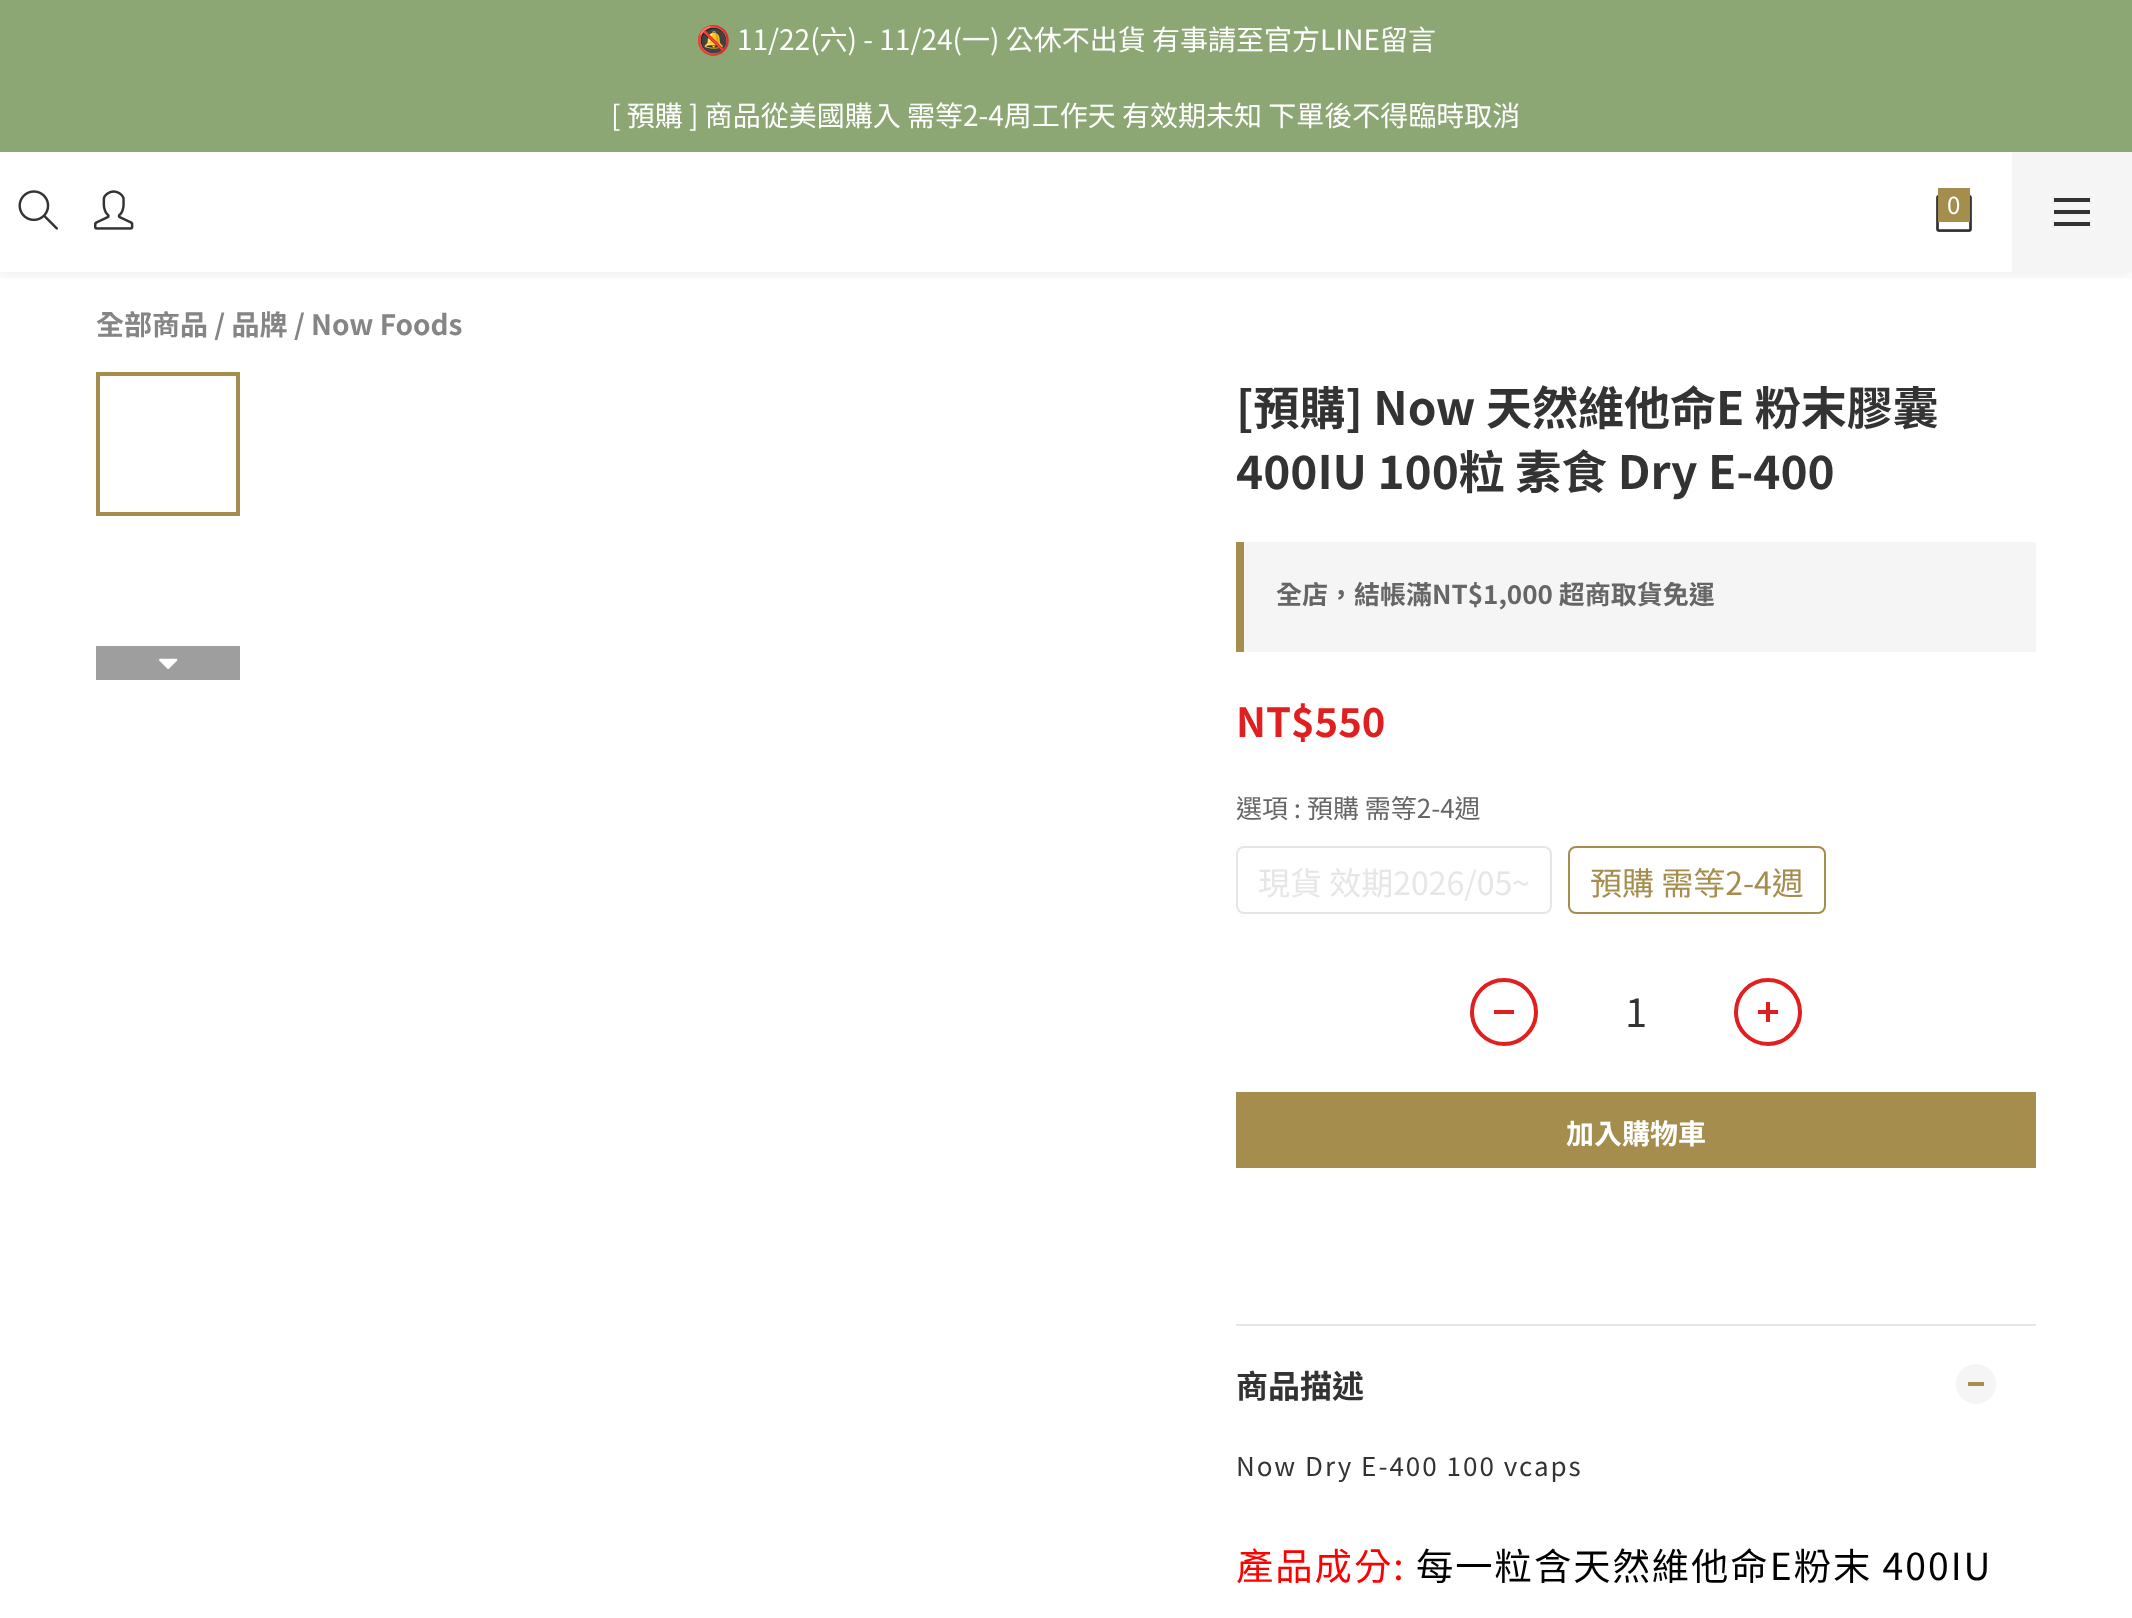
<svg xmlns="http://www.w3.org/2000/svg" width="2132" height="1618" viewBox="0 0 2132 1618">
  <defs>
    <clipPath id="clip1"><path d="M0 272h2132v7H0z"/></clipPath>
  </defs>
  <rect width="100%" height="100%" fill="#fff"/>
  <path d="M0 0h2132v152H0z" fill="#8ca674"/>
  <g clip-path="url(#clip1)">
    <path d="M0 156h2132v120H0z" fill="#0000000f" filter="blur(6px)"/>
  </g>
  <image x="18" y="190" width="40" height="40" href="img/1.png"/>
  <image x="94" y="190" width="40" height="40" href="img/2.png"/>
  <image x="1936" y="195" width="36" height="37" href="img/3.png"/>
  <path d="M1938 188h32v34H1938z" fill="#a58d4e"/>
  <path d="M2012 152h120v120H2012z" fill="#f5f5f5"/>
  <path d="M2054 210h36v4H2054z" fill="#333"/>
  <path d="M2054 198h36v4H2054z" fill="#333"/>
  <path d="M2054 222h36v4H2054z" fill="#333"/>
  <path d="M98 374h140v140H98z" fill="none" stroke="#a58d4e" stroke-width="4"/>
  <path d="M96 646h144v34H96z" fill="#9e9e9e"/>
  <image x="159" y="658" width="19" height="11" href="img/4.png"/>
  <path d="M1244 542h792v110H1244z" fill="#f5f5f5"/>
  <path d="M1236 542h8v110H1236z" fill="#a58d4e"/>
  <rect x="1237" y="847" width="314" height="66" rx="7" fill="none" stroke="#e6e6e6" stroke-width="2"/>
  <rect x="1569" y="847" width="256" height="66" rx="7" fill="none" stroke="#a58d4e" stroke-width="2"/>
  <circle cx="1504" cy="1012" r="32" fill="none" stroke="#e02020" stroke-width="4"/>
  <path d="M1494 1010h20v4H1494z" fill="#e02020"/>
  <circle cx="1768" cy="1012" r="32" fill="none" stroke="#e02020" stroke-width="4"/>
  <path d="M1758 1010h20v4H1758z" fill="#e02020"/>
  <path d="M1766 1002h4v20H1766z" fill="#e02020"/>
  <path d="M1236 1092h800v76H1236z" fill="#a58d4e"/>
  <path d="M1236 1324h800v2H1236z" fill="#e6e6e6"/>
  <circle cx="1976" cy="1384" r="20" fill="#f5f5f5"/>
  <path d="M1968 1382h16v4H1968z" fill="#a58d4e"/>
  <text x="696" y="50" font-family="Noto Color Emoji" font-size="28" fill="#fff">🔕</text>
  <g font-family="Noto Sans TC" font-size="28" fill="#fff">
    <text x="737" y="50">11/22(六) - 11/24(一) 公休不出貨 有事請至官方LINE留言</text>
    <text x="611" y="126">[ 預購 ] 商品從美國購入 需等2-4周工作天 有效期未知 下單後不得臨時取消</text>
  </g>
  <text x="1947" y="214" font-family="Noto Sans TC" font-size="24" fill="#fff">0</text>
  <text x="96" y="335" font-family="Noto Sans TC" font-size="28" font-weight="bold" fill="#858585">全部商品 / 品牌 / Now Foods</text>
  <g font-family="Noto Sans TC" font-size="46" font-weight="bold" fill="#333">
    <text x="1236" y="425">[預購] Now 天然維他命E 粉末膠囊</text>
    <text x="1236" y="489">400IU 100粒 素食 Dry E-400</text>
  </g>
  <text x="1276" y="604" font-family="Noto Sans TC" font-size="26" font-weight="bold" fill="#666">全店，結帳滿NT$1,000 超商取貨免運</text>
  <text x="1236" y="737" font-family="Noto Sans TC" font-size="40" font-weight="bold" fill="#e02020">NT$550</text>
  <text x="1236" y="818" font-family="Noto Sans TC" font-size="26" fill="#666">選項 : 預購 需等2-4週</text>
  <text x="1258" y="895" font-family="Noto Sans TC" font-size="32" fill="#e6e6e6">現貨 效期2026/05~</text>
  <text x="1590" y="895" font-family="Noto Sans TC" font-size="32" fill="#a58d4e">預購 需等2-4週</text>
  <text x="1625" y="1027" font-family="Noto Sans TC" font-size="40" fill="#333">1</text>
  <text x="1566" y="1144" font-family="Noto Sans TC" font-size="28" font-weight="bold" fill="#fff">加入購物車</text>
  <text x="1236" y="1398" font-family="Noto Sans TC" font-size="32" font-weight="bold" fill="#333">商品描述</text>
  <text x="1236" y="1476" font-family="Noto Sans TC" font-size="26" letter-spacing="2" fill="#333">Now Dry E-400 100 vcaps</text>
  <text x="1236" y="1580" font-family="Noto Sans TC" font-size="37.3" letter-spacing="2" fill="#f00">產品成分:</text>
  <text x="1416" y="1580" font-family="Noto Sans TC" font-size="37.3" letter-spacing="2" fill="#000">每一粒含天然維他命E粉末 400IU</text>
</svg>
